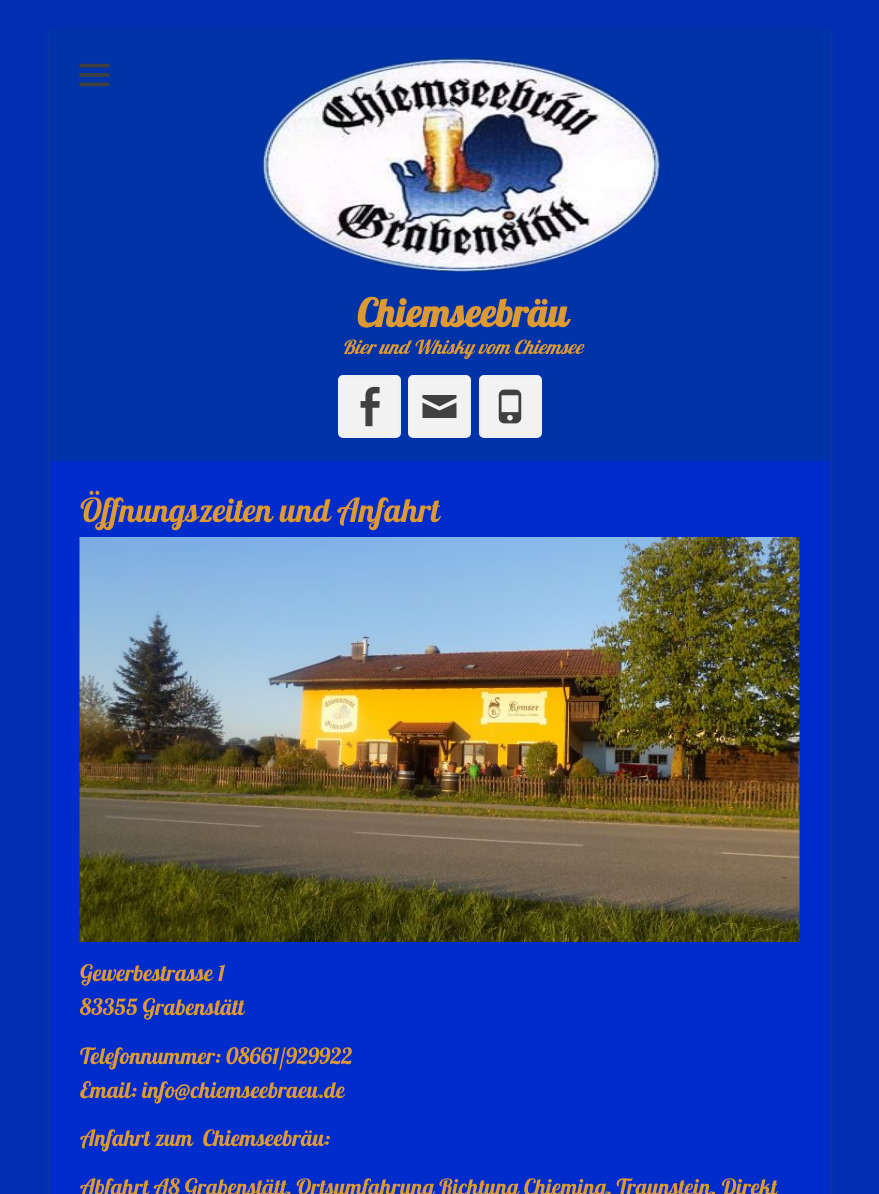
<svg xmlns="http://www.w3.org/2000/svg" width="879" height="1194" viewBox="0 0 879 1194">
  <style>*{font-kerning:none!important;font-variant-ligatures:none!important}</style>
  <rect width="100%" height="100%" fill="#002fb2"/>
  <rect x="50" y="33" width="780" height="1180" rx="5" fill="#6464644d" filter="blur(4.5px)"/>
  <path d="M50 30h780v431H50z" fill="#0032a8"/>
  <image x="79" y="63" width="31" height="24" href="img/1.png"/>
  <image x="262" y="58" width="399" height="215" href="img/2.png"/>
  <rect x="339" y="376" width="61" height="61" rx="4" fill="#f2f2f2" stroke="#eee" stroke-width="2"/>
  <image x="360" y="386" width="20" height="41" href="img/3.png"/>
  <rect x="409" y="376" width="61" height="61" rx="4" fill="#f2f2f2" stroke="#eee" stroke-width="2"/>
  <path d="M422.5 395H456.5V398L439.5 406.5L422.5 398ZM422.5 402.5L439.5 410.5L456.5 402.5V418H422.5Z" fill="#404040"/>
  <rect x="480" y="376" width="61" height="61" rx="4" fill="#f2f2f2" stroke="#eee" stroke-width="2"/>
  <image x="498" y="389" width="24" height="35" href="img/4.png"/>
  <path d="M50 461h780v733H50z" fill="#002ccc"/>
  <image x="79" y="537" width="721" height="405" href="img/5.png"/>
  <text x="357" y="327" font-family="Lobster" font-size="39" font-weight="bold" fill="#d93">Chiemseebräu</text>
  <text x="342" y="354" font-family="Lobster" font-size="19.5" font-style="italic" fill="#d93">Bier und Whisky vom Chiemsee</text>
  <text x="80" y="522" font-family="Lobster" font-size="33" fill="#d93">Öffnungszeiten und</text>
  <text x="337" y="522" font-family="Lobster" font-size="33" fill="#d93">Anfahrt</text>
  <g font-family="Lobster" font-size="22.5" fill="#d93">
    <text x="80" y="981">Gewerbestrasse 1</text>
    <text x="80" y="1015">83355 Grabenstätt</text>
    <text x="80" y="1064">Telefonnummer: 08661/929922</text>
    <text x="80" y="1098">Email: info@chiemseebraeu.de</text>
    <text x="80" y="1146" xml:space="preserve">Anfahrt zum  Chiemseebräu:</text>
    <text x="80" y="1195">Abfahrt A8 Grabenstätt, Ortsumfahrung Richtung Chieming, Traunstein. Direkt</text>
  </g>
</svg>
